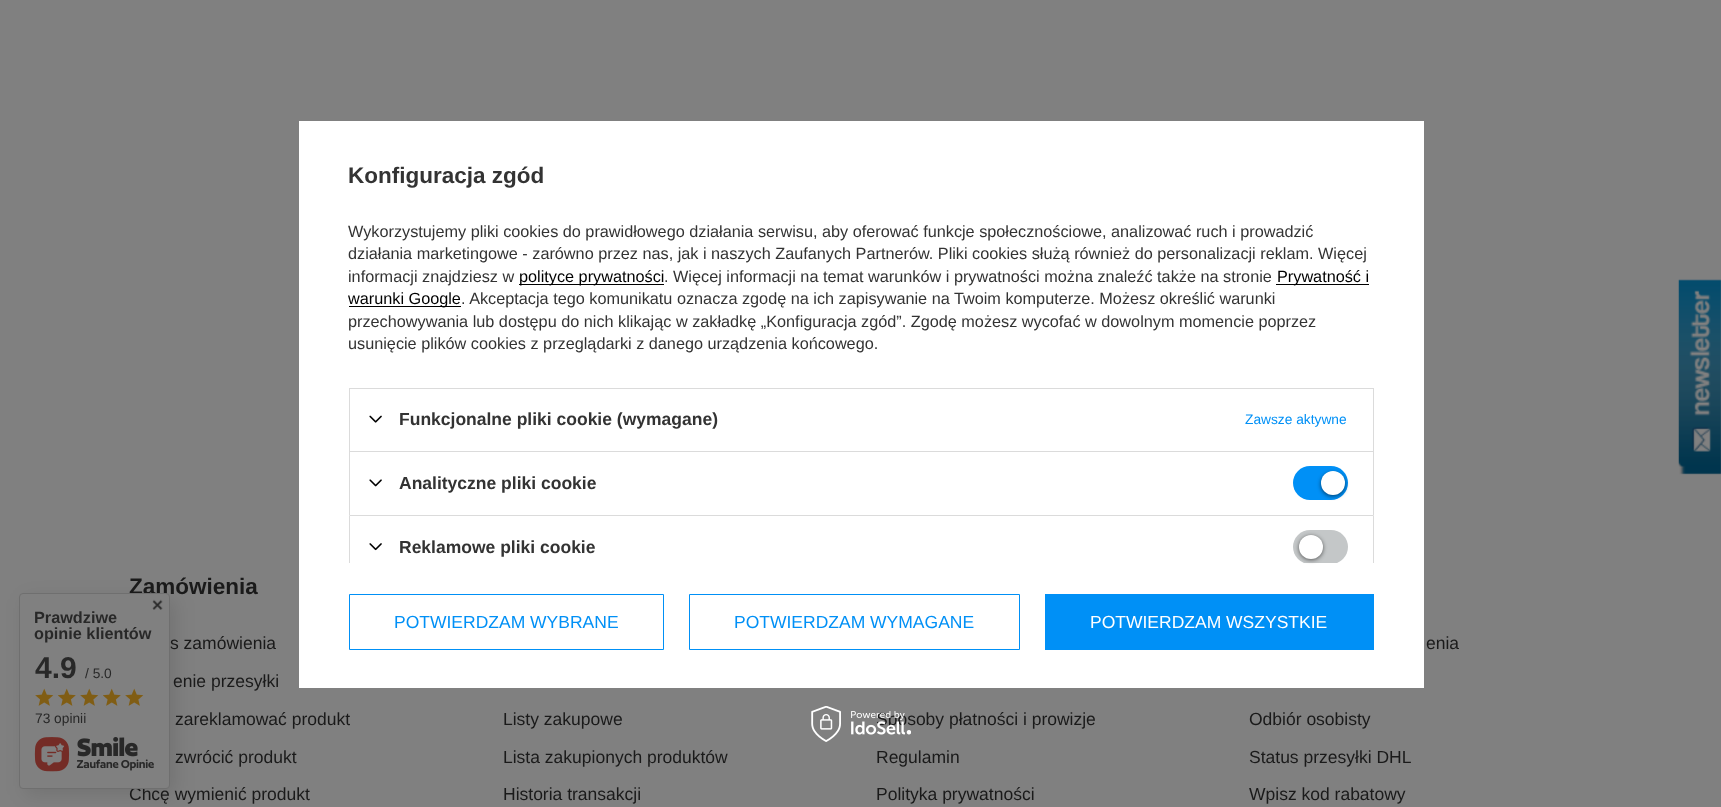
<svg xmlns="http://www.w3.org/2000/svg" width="1721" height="807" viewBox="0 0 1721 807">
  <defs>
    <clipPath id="clip1"><path d="M336 159h1050v404H336z"/></clipPath>
  </defs>
  <rect width="100%" height="100%" fill="#808080"/>
  <path d="M299 121h1125v567H299z" fill="#fff"/>
  <path d="M519 284h145v1H519z" fill="#000"/>
  <path d="M1276 284h93v1H1276z" fill="#000"/>
  <path d="M349 306h112v1H349z" fill="#000"/>
  <path d="M349 388h1025v1H349z" fill="#dbdbdb"/>
  <path d="M1373 388h1v63H1373z" fill="#dbdbdb"/>
  <path d="M349 388h1v63H349z" fill="#dbdbdb"/>
  <image x="369" y="415" width="13" height="8" href="img/1.png"/>
  <path d="M349 451h1025v1H349z" fill="#dbdbdb"/>
  <path d="M1373 451h1v64H1373z" fill="#dbdbdb"/>
  <path d="M349 451h1v64H349z" fill="#dbdbdb"/>
  <image x="369" y="479" width="13" height="8" href="img/2.png"/>
  <rect x="1293" y="466" width="55" height="34" rx="17" fill="#0090f6"/>
  <rect x="1321" y="473" width="24" height="23" rx="11.5" fill="#0000008f" filter="blur(2px)"/>
  <circle cx="1333" cy="483" r="12" fill="#fff"/>
  <g clip-path="url(#clip1)">
    <path d="M349.5 515.5h1024v64H349.5z" fill="none" stroke="#dbdbdb"/>
  </g>
  <image x="369" y="543" width="13" height="8" href="img/3.png"/>
  <g clip-path="url(#clip1)">
    <rect x="1293" y="530" width="55" height="34" rx="17" fill="#c4c7c8"/>
  </g>
  <rect x="1299" y="536" width="24" height="24" rx="12" fill="#0000008f" filter="blur(2px)"/>
  <circle cx="1311" cy="547" r="12" fill="#fff"/>
  <path d="M349.5 594.5h314v55H349.5z" fill="none" stroke="#0090f6"/>
  <path d="M689.5 594.5h330v55H689.5z" fill="none" stroke="#0090f6"/>
  <path d="M1045 594h329v56H1045z" fill="#0090f6"/>
  <image x="1678" y="279" width="43" height="196" href="img/5.png"/>
  <rect x="25" y="599" width="151" height="196" rx="4" fill="#0000001a" filter="blur(9.5px)"/>
  <text x="348" y="183" font-family="Liberation Sans" font-size="22.5" font-weight="bold" fill="#333">Konfiguracja zgód</text>
  <g font-family="Liberation Sans" font-size="16.25" fill="#333">
    <text x="348" y="237">Wykorzystujemy pliki cookies do prawidłowego działania serwisu, aby oferować funkcje społecznościowe, analizować ruch i prowadzić</text>
    <text x="348" y="259">działania marketingowe - zarówno przez nas, jak i naszych Zaufanych Partnerów. Pliki cookies służą również do personalizacji reklam. Więcej</text>
    <text x="348" y="282">informacji znajdziesz w</text>
  </g>
  <text x="519" y="282" font-family="Liberation Sans" font-size="16.25" fill="#000">polityce prywatności</text>
  <text x="664" y="282" font-family="Liberation Sans" font-size="16.25" fill="#333">. Więcej informacji na temat warunków i prywatności można znaleźć także na stronie</text>
  <g font-family="Liberation Sans" font-size="16.25" fill="#000">
    <text x="1277" y="282">Prywatność i</text>
    <text x="348" y="304">warunki Google</text>
  </g>
  <g font-family="Liberation Sans" font-size="16.25" fill="#333">
    <text x="461" y="304">. Akceptacja tego komunikatu oznacza zgodę na ich zapisywanie na Twoim komputerze. Możesz określić warunki</text>
    <text x="348" y="327">przechowywania lub dostępu do nich klikając w zakładkę „Konfiguracja zgód”. Zgodę możesz wycofać w dowolnym momencie poprzez</text>
    <text x="348" y="349">usunięcie plików cookies z przeglądarki z danego urządzenia końcowego.</text>
  </g>
  <text x="399" y="425" font-family="Liberation Sans" font-size="17.5" font-weight="bold" fill="#333">Funkcjonalne pliki cookie (wymagane)</text>
  <text x="1245" y="424" font-family="Liberation Sans" font-size="13.75" fill="#0090f6">Zawsze aktywne</text>
  <g font-family="Liberation Sans" font-size="17.5" font-weight="bold" fill="#333">
    <text x="399" y="489">Analityczne pliki cookie</text>
    <text x="399" y="553">Reklamowe pliki cookie</text>
  </g>
  <g font-family="Liberation Sans" font-size="17.5" fill="#0090f6">
    <text x="394" y="628">POTWIERDZAM WYBRANE</text>
    <text x="734" y="628">POTWIERDZAM WYMAGANE</text>
  </g>
  <text x="1090" y="628" font-family="Liberation Sans" font-size="17.5" fill="#fff">POTWIERDZAM WSZYSTKIE</text>
  <text x="129" y="594" font-family="Liberation Sans" font-size="22.5" font-weight="bold" fill="#1a1a1a">Zamówienia</text>
  <g font-family="Liberation Sans" font-size="17.5" fill="#1a1a1a">
    <text x="170" y="649">s zamówienia</text>
    <text x="173" y="687">enie przesyłki</text>
    <text x="175" y="725">zareklamować produkt</text>
    <text x="175" y="763">zwrócić produkt</text>
    <text x="129" y="800">Chcę wymienić produkt</text>
  </g>
  <rect x="19.5" y="593.5" width="150" height="195" rx="3.5" fill="#808080" stroke="#6f6f6f"/>
  <image x="152" y="599" width="11" height="11" href="img/6.png"/>
  <image x="34" y="737" width="120" height="35" href="img/9.png"/>
  <image x="125" y="688" width="19" height="18" href="img/7.png"/>
  <image x="103" y="688" width="18" height="18" href="img/8.png"/>
  <image x="80" y="688" width="19" height="18" href="img/7.png"/>
  <image x="58" y="688" width="18" height="18" href="img/8.png"/>
  <image x="35" y="688" width="19" height="18" href="img/7.png"/>
  <g font-family="Liberation Sans" font-size="13.75" fill="#282828">
    <text x="35" y="723">73 opinii</text>
    <text x="85" y="678">/ 5.0</text>
  </g>
  <text x="35" y="678" font-family="Liberation Sans" font-size="30" font-weight="bold" fill="#282828">4.9</text>
  <g font-family="Liberation Sans" font-size="16.25" font-weight="bold" fill="#282828">
    <text x="34" y="639">opinie klientów</text>
    <text x="34" y="623">Prawdziwe</text>
  </g>
  <g font-family="Liberation Sans" font-size="17.5" fill="#1a1a1a">
    <text x="503" y="725">Listy zakupowe</text>
    <text x="503" y="763">Lista zakupionych produktów</text>
    <text x="503" y="800">Historia transakcji</text>
    <text x="876" y="725">Sposoby płatności i prowizje</text>
  </g>
  <image x="811" y="706" width="100" height="36" href="img/4.png"/>
  <g font-family="Liberation Sans" font-size="17.5" fill="#1a1a1a">
    <text x="876" y="763">Regulamin</text>
    <text x="876" y="800">Polityka prywatności</text>
    <text x="1426" y="649">enia</text>
    <text x="1249" y="725">Odbiór osobisty</text>
    <text x="1249" y="763">Status przesyłki DHL</text>
    <text x="1249" y="800">Wpisz kod rabatowy</text>
  </g>
</svg>
